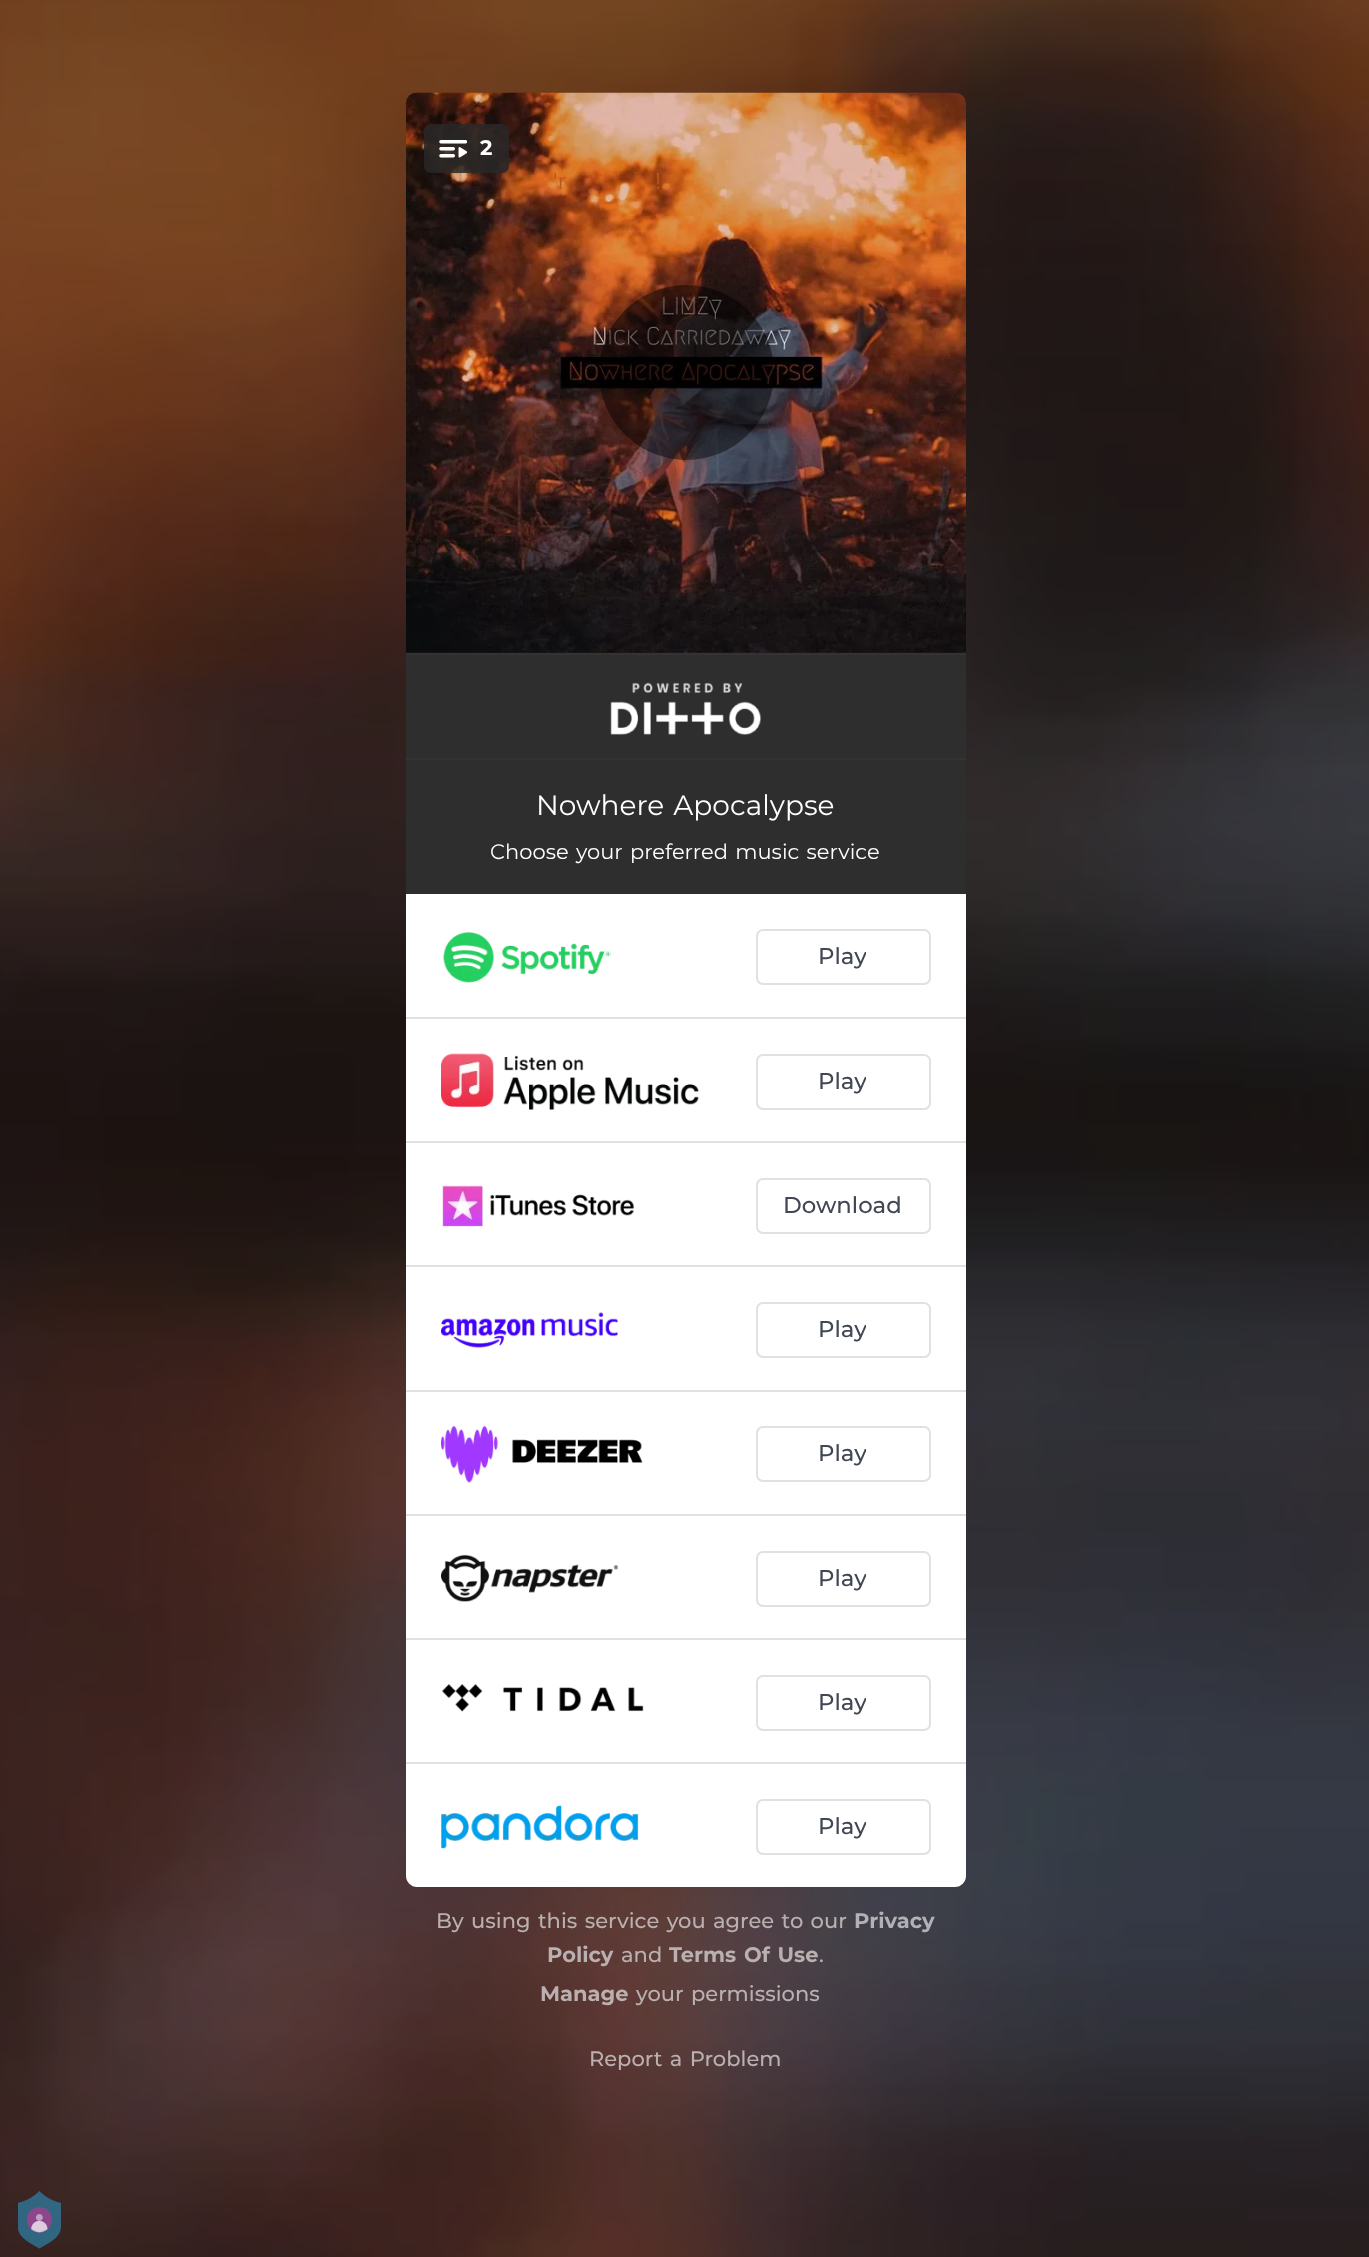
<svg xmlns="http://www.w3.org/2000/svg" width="1369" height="2257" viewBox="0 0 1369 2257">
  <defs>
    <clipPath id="clip1"><path d="M819 940h47v35H819z"/></clipPath>
    <clipPath id="clip2"><path d="M819 1064h47v35H819z"/></clipPath>
    <clipPath id="clip3"><path d="M819 1313h47v35H819z"/></clipPath>
    <clipPath id="clip4"><path d="M819 1437h47v35H819z"/></clipPath>
    <clipPath id="clip5"><path d="M819 1561h47v35H819z"/></clipPath>
    <clipPath id="clip6"><path d="M819 1685h47v35H819z"/></clipPath>
    <clipPath id="clip7"><path d="M819 1810h47v35H819z"/></clipPath>
  </defs>
  <rect width="100%" height="100%" fill="#fff"/>
  <image x="0" y="0" width="1369" height="2257" href="img/1.png"/>
  <image x="405" y="92" width="561" height="561" href="img/2.png"/>
  <rect x="424" y="124" width="85" height="49" rx="7" fill="#282828d9"/>
  <image x="439" y="140" width="28" height="18" href="img/3.png"/>
  <circle cx="686.5" cy="372.5" r="87.5" fill="#00000073"/>
  <path d="M406 655h560v103H406z" fill="#2e2e2e"/>
  <path d="M406 653h560v2H406z" fill="#333"/>
  <path d="M406 758h560v2H406z" fill="#333"/>
  <image x="610" y="682" width="152" height="53" href="img/4.png"/>
  <path d="M406 760h560v134H406z" fill="#2e2e2e"/>
  <path d="M406 894H966V1876C966 1882 961 1887 955 1887H417C411 1887 406 1882 406 1876Z" fill="#fff"/>
  <path d="M406 1017h560v2H406z" fill="#e1e1e4"/>
  <image x="443" y="931" width="168" height="52" href="img/5.png"/>
  <rect x="757" y="930" width="173" height="54" rx="6" fill="none" stroke="#e1e1e4" stroke-width="2"/>
  <path d="M406 1141h560v2H406z" fill="#e1e1e4"/>
  <image x="441" y="1053" width="258" height="57" href="img/6.png"/>
  <rect x="757" y="1055" width="173" height="54" rx="6" fill="none" stroke="#e1e1e4" stroke-width="2"/>
  <path d="M406 1265h560v2H406z" fill="#e1e1e4"/>
  <image x="442" y="1185" width="193" height="42" href="img/7.png"/>
  <rect x="757" y="1179" width="173" height="54" rx="6" fill="none" stroke="#e1e1e4" stroke-width="2"/>
  <path d="M406 1390h560v2H406z" fill="#e1e1e4"/>
  <image x="441" y="1312" width="177" height="36" href="img/8.png"/>
  <rect x="757" y="1303" width="173" height="54" rx="6" fill="none" stroke="#e1e1e4" stroke-width="2"/>
  <path d="M406 1514h560v2H406z" fill="#e1e1e4"/>
  <image x="441" y="1426" width="202" height="57" href="img/9.png"/>
  <rect x="757" y="1427" width="173" height="54" rx="6" fill="none" stroke="#e1e1e4" stroke-width="2"/>
  <path d="M406 1638h560v2H406z" fill="#e1e1e4"/>
  <image x="441" y="1554" width="177" height="48" href="img/10.png"/>
  <rect x="757" y="1552" width="173" height="54" rx="6" fill="none" stroke="#e1e1e4" stroke-width="2"/>
  <path d="M406 1762h560v2H406z" fill="#e1e1e4"/>
  <image x="442" y="1683" width="202" height="29" href="img/11.png"/>
  <rect x="757" y="1676" width="173" height="54" rx="6" fill="none" stroke="#e1e1e4" stroke-width="2"/>
  <image x="441" y="1805" width="200" height="44" href="img/12.png"/>
  <rect x="757" y="1800" width="173" height="54" rx="6" fill="none" stroke="#e1e1e4" stroke-width="2"/>
  <image x="18" y="2191" width="43" height="58" href="img/13.png"/>
  <text x="480" y="155" font-family="Montserrat" font-size="21" font-weight="bold" fill="#fff">2</text>
  <g font-family="Montserrat" font-size="22.75" fill="#bc581e">
    <text x="553" y="189" word-spacing="1.75">'r</text>
    <text x="655" y="189" word-spacing="1.75">!</text>
  </g>
  <text x="536" y="815" word-spacing="1.75" font-family="Montserrat" font-size="28" fill="#fff">Nowhere Apocalypse</text>
  <text x="490" y="859" word-spacing="1.75" font-family="Montserrat" font-size="21" fill="#fff">Choose your preferred music service</text>
  <g clip-path="url(#clip1)">
    <text x="818" y="964" font-family="Montserrat" font-size="22.75" font-weight="500" fill="#414754">Play</text>
  </g>
  <g clip-path="url(#clip2)">
    <text x="818" y="1089" font-family="Montserrat" font-size="22.75" font-weight="500" fill="#414754">Play</text>
  </g>
  <text x="783" y="1213" font-family="Montserrat" font-size="22.75" font-weight="500" fill="#414754">Download</text>
  <g clip-path="url(#clip3)">
    <text x="818" y="1337" font-family="Montserrat" font-size="22.75" font-weight="500" fill="#414754">Play</text>
  </g>
  <g clip-path="url(#clip4)">
    <text x="818" y="1461" font-family="Montserrat" font-size="22.75" font-weight="500" fill="#414754">Play</text>
  </g>
  <g clip-path="url(#clip5)">
    <text x="818" y="1586" font-family="Montserrat" font-size="22.75" font-weight="500" fill="#414754">Play</text>
  </g>
  <g clip-path="url(#clip6)">
    <text x="818" y="1710" font-family="Montserrat" font-size="22.75" font-weight="500" fill="#414754">Play</text>
  </g>
  <g clip-path="url(#clip7)">
    <text x="818" y="1834" font-family="Montserrat" font-size="22.75" font-weight="500" fill="#414754">Play</text>
  </g>
  <text x="436" y="1928" word-spacing="1.75" font-family="Montserrat" font-size="21" font-weight="500" fill="#bab0b0">By using this service you agree to our</text>
  <text x="854" y="1928" font-family="Montserrat" font-size="21" font-weight="bold" fill="#b2b2b6">Privacy</text>
  <text x="547" y="1962" font-family="Montserrat" font-size="21" font-weight="bold" fill="#bab0b0">Policy</text>
  <text x="621" y="1962" font-family="Montserrat" font-size="21" font-weight="500" fill="#bab0b0">and</text>
  <text x="669" y="1962" word-spacing="1.75" font-family="Montserrat" font-size="21" font-weight="bold" fill="#bab0b0">Terms Of Use</text>
  <text x="819" y="1962" font-family="Montserrat" font-size="21" font-weight="500" fill="#bab0b0">.</text>
  <text x="540" y="2001" font-family="Montserrat" font-size="21" font-weight="bold" fill="#bab0b0">Manage</text>
  <g font-family="Montserrat" font-size="21" font-weight="500" fill="#bab0b0">
    <text x="636" y="2001" word-spacing="1.75">your permissions</text>
    <text x="589" y="2066" word-spacing="1.75">Report a Problem</text>
  </g>
</svg>
